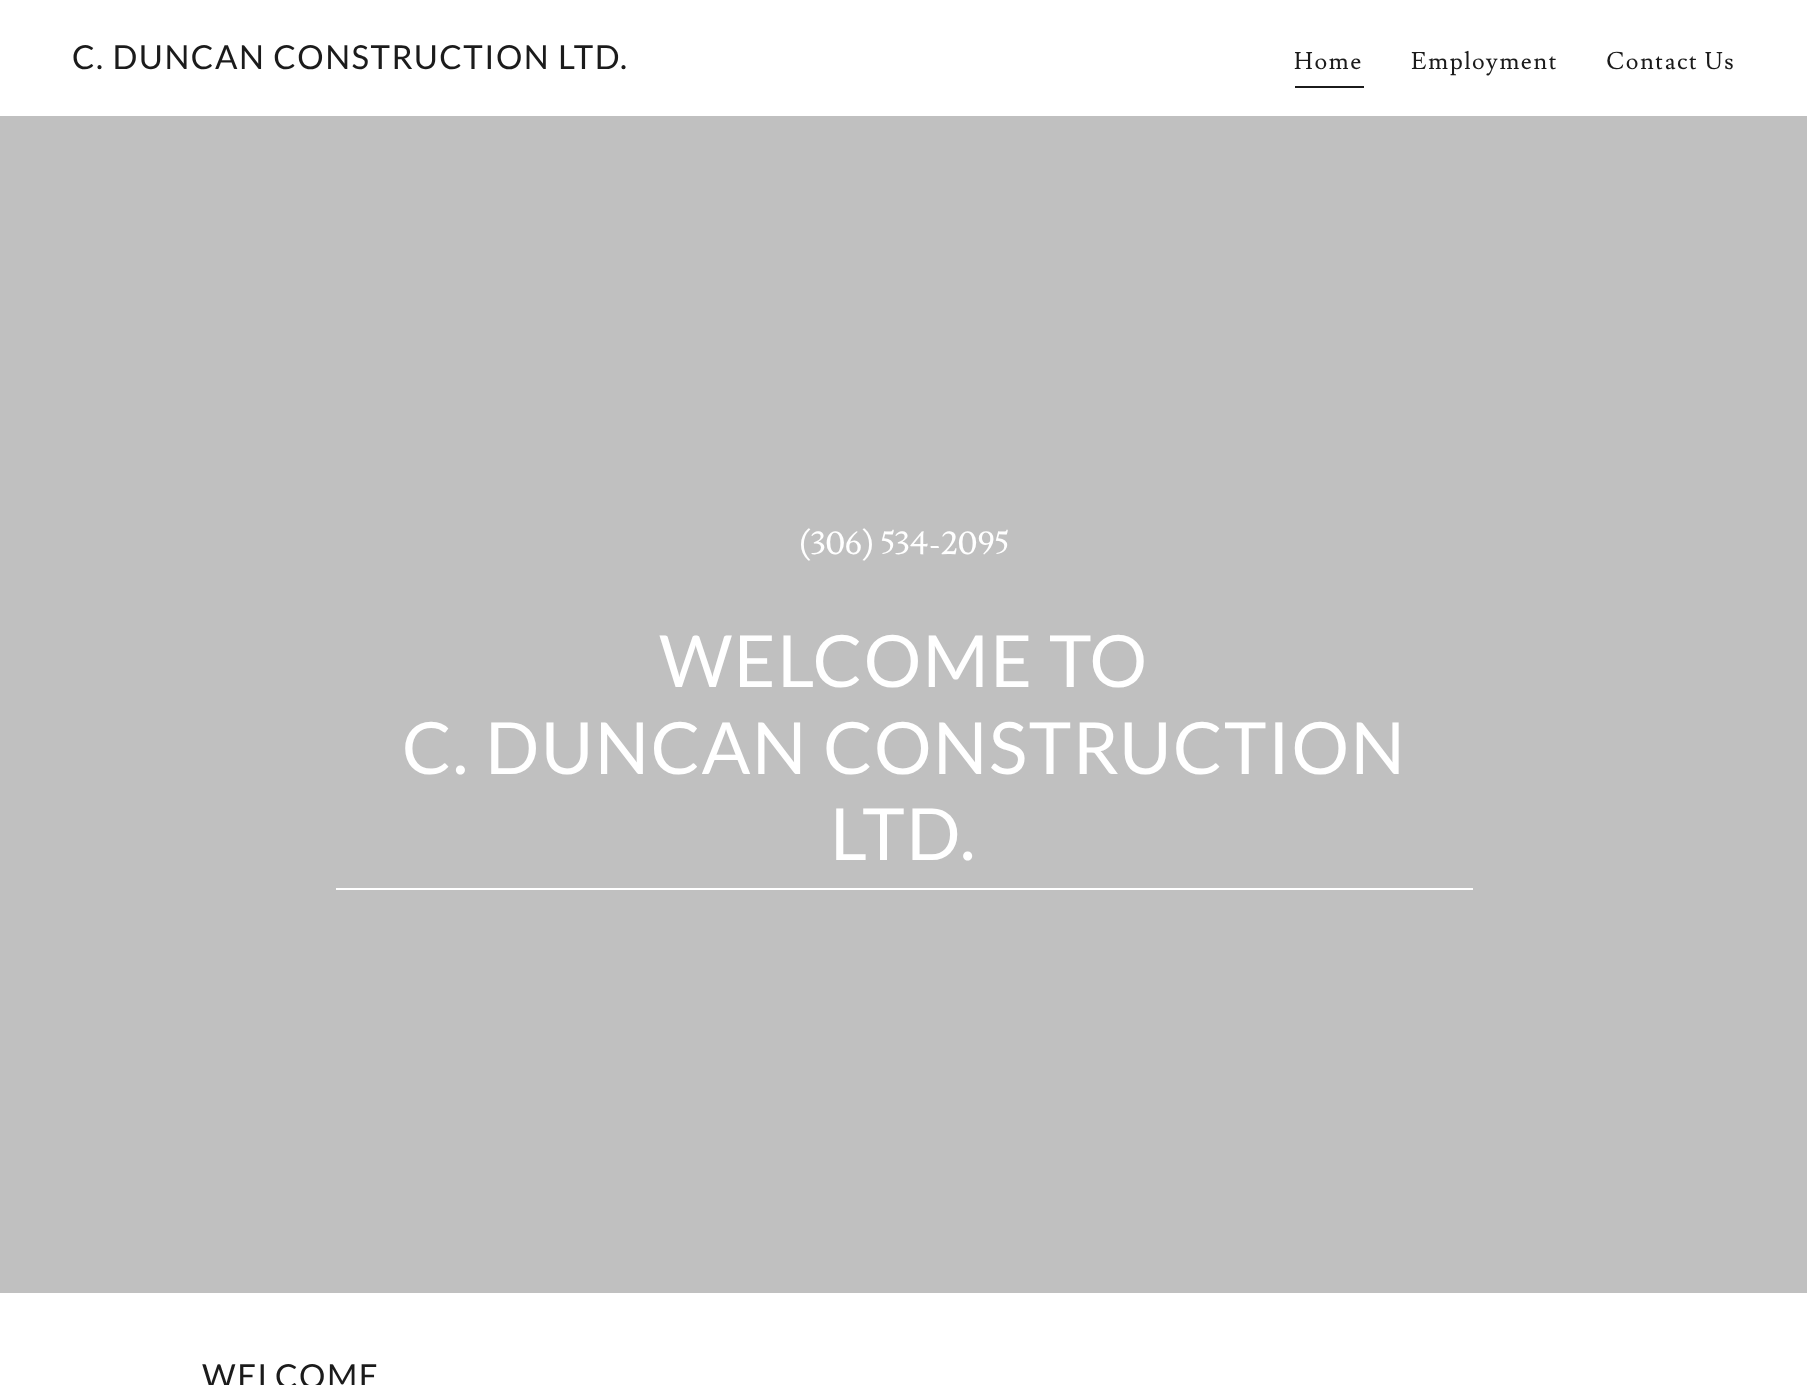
<svg xmlns="http://www.w3.org/2000/svg" width="1807" height="1385" viewBox="0 0 1807 1385">
  <rect width="100%" height="100%" fill="#fff"/>
  <path d="M1295 86h69v2H1295z" fill="#1b1b1b"/>
  <path d="M0 116h1807v1177H0z" fill="#c0c0c0"/>
  <path d="M336 888h1137v2H336z" fill="#fff"/>
  <text x="72" y="69" font-family="Lato" font-size="33" letter-spacing="1.5" fill="#1b1b1b">C. DUNCAN CONSTRUCTION LTD.</text>
  <g font-family="Lusitana" font-size="24" letter-spacing="1.5" fill="#1b1b1b">
    <text x="1294" y="69">Home</text>
    <text x="1411" y="69">Employment</text>
    <text x="1606" y="69">Contact Us</text>
  </g>
  <text x="799" y="554" font-family="Lusitana" font-size="33" fill="#fff">(306) 534-2095</text>
  <g font-family="Lato" font-size="72" letter-spacing="1.5" fill="#fff">
    <text x="659" y="687">WELCOME TO</text>
    <text x="402" y="774">C. DUNCAN CONSTRUCTION</text>
    <text x="830" y="860">LTD.</text>
  </g>
  <text x="202" y="1388" font-family="Lato" font-size="33" letter-spacing="1.5" fill="#1b1b1b">WELCOME</text>
</svg>
